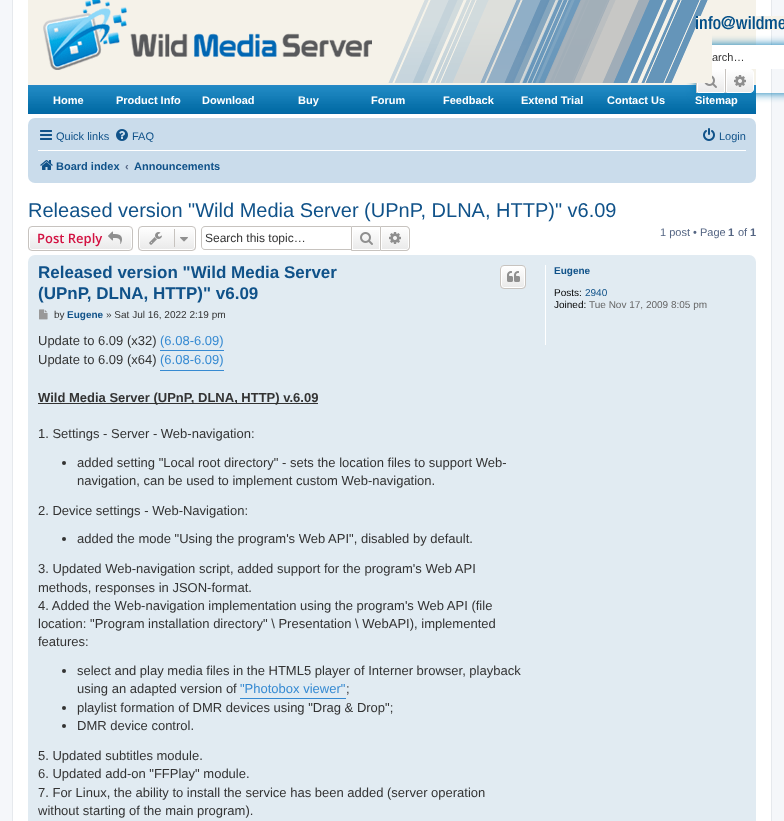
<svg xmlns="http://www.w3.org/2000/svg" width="784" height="821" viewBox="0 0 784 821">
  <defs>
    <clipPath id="clip1"><path d="M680 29H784V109H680ZM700 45H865C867 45 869 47 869 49V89C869 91 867 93 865 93H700C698 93 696 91 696 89V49C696 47 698 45 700 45Z" clip-rule="evenodd"/></clipPath>
    <linearGradient id="g1" gradientUnits="userSpaceOnUse" x1="711" y1="69" x2="711" y2="93"><stop offset="0" stop-color="#fff"/><stop offset="1" stop-color="#e9e9e9"/></linearGradient>
    <linearGradient id="g2" gradientUnits="userSpaceOnUse" x1="740" y1="69" x2="740" y2="93"><stop offset="0" stop-color="#fff"/><stop offset="1" stop-color="#e9e9e9"/></linearGradient>
    <clipPath id="clip2"><rect x="28" y="226" width="105" height="25" rx="4"/></clipPath>
    <linearGradient id="g3" gradientUnits="userSpaceOnUse" x1="81" y1="227" x2="81" y2="250"><stop offset="0" stop-color="#fff"/><stop offset="1" stop-color="#e9e9e9"/></linearGradient>
    <clipPath id="clip3"><rect x="138" y="226" width="58" height="25" rx="4"/></clipPath>
    <linearGradient id="g4" gradientUnits="userSpaceOnUse" x1="167" y1="227" x2="167" y2="250"><stop offset="0" stop-color="#fff"/><stop offset="1" stop-color="#e9e9e9"/></linearGradient>
    <linearGradient id="g5" gradientUnits="userSpaceOnUse" x1="366" y1="227" x2="366" y2="250"><stop offset="0" stop-color="#fff"/><stop offset="1" stop-color="#e9e9e9"/></linearGradient>
    <linearGradient id="g6" gradientUnits="userSpaceOnUse" x1="395" y1="227" x2="395" y2="250"><stop offset="0" stop-color="#fff"/><stop offset="1" stop-color="#e9e9e9"/></linearGradient>
    <clipPath id="clip4"><rect x="500" y="265" width="26" height="24" rx="4"/></clipPath>
    <linearGradient id="g7" gradientUnits="userSpaceOnUse" x1="513" y1="266" x2="513" y2="288"><stop offset="0" stop-color="#fff"/><stop offset="1" stop-color="#e9e9e9"/></linearGradient>
  </defs>
  <rect width="100%" height="100%" fill="#f5f7fa"/>
  <path d="M12.5 -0.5h759v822H12.5z" fill="#fff" stroke="#e6e9ed"/>
  <path d="M28 0h728v85H28z" fill="#f5f2e9"/>
  <image x="43" y="0" width="329" height="70" href="img/1.png"/>
  <image x="28" y="85" width="728" height="29" href="img/6.png"/>
  <g clip-path="url(#clip1)">
    <rect x="696" y="45" width="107" height="48" rx="4" fill="#0075b0" filter="blur(5px)"/>
  </g>
  <path d="M698 70h26v22H698z" fill="url(#g1)"/>
  <path d="M697.5 69.5h27v23H697.5z" fill="none" stroke="#fff"/>
  <image x="704" y="75" width="13" height="13" href="img/4.png"/>
  <image x="388" y="0" width="324" height="83" href="img/2.png"/>
  <image x="696" y="16" width="88" height="14" href="img/3.png"/>
  <path d="M712 45h72v24H712z" fill="#fff"/>
  <path d="M725 69h1v24H725z" fill="#c7c3bf"/>
  <path d="M696 83h1v10H696z" fill="#c7c3bf"/>
  <path d="M726.5 69.5H750C752 69.5 753.5 71 753.5 73V89C753.5 91 752 92.5 750 92.5H726.5Z" fill="url(#g2)" stroke="#fff"/>
  <image x="734" y="75" width="12" height="12" href="img/5.png"/>
  <rect x="28" y="118" width="728" height="65" rx="7" fill="#cadceb"/>
  <image x="40" y="130" width="12" height="10" href="img/7.png"/>
  <image x="116" y="129" width="12" height="12" href="img/8.png"/>
  <image x="703" y="128" width="12" height="13" href="img/9.png"/>
  <path d="M38 150h708v1H38z" fill="#fff"/>
  <image x="40" y="160" width="13" height="10" href="img/10.png"/>
  <g clip-path="url(#clip2)">
    <path d="M28 227h105v23H28z" fill="url(#g3)"/>
  </g>
  <rect x="29.5" y="227.5" width="102" height="22" rx="2.5" fill="none" stroke="#fff"/>
  <rect x="28.5" y="226.5" width="104" height="24" rx="3.5" fill="none" stroke="#c7c3bf"/>
  <image x="108" y="231" width="14" height="13" href="img/11.png"/>
  <g clip-path="url(#clip3)">
    <path d="M138 227h58v23H138z" fill="url(#g4)"/>
  </g>
  <rect x="139.5" y="227.5" width="55" height="22" rx="2.5" fill="none" stroke="#fff"/>
  <rect x="138.5" y="226.5" width="57" height="24" rx="3.5" fill="none" stroke="#c7c3bf"/>
  <image x="149" y="232" width="13" height="13" href="img/12.png"/>
  <path d="M174 229h1v18H174z" fill="#c7c3bf"/>
  <image x="180" y="237" width="8" height="5" href="img/13.png"/>
  <path d="M205 226H351V250H205C203 250 201 248 201 246V230C201 228 203 226 205 226ZM205 227H351V249H205C203 249 202 248 202 246V230C202 228 203 227 205 227Z" fill="#c7c3bf" fill-rule="evenodd"/>
  <path d="M353 230h26v19H353z" fill="url(#g5)"/>
  <path d="M351.5 226.5h29v24H351.5z" fill="none" stroke="#c7c3bf"/>
  <image x="360" y="232" width="13" height="13" href="img/14.png"/>
  <path d="M381.5 227.5H406C407.5 227.5 408.5 228.5 408.5 230V247C408.5 248.5 407.5 249.5 406 249.5H381.5Z" fill="url(#g6)" stroke="#fff"/>
  <path d="M381 226H406C408 226 410 228 410 230V247C410 249 408 251 406 251H381ZM381 227H406C407.5 227 409 228.5 409 230V247C409 248.5 407.5 250 406 250H381Z" fill="#c7c3bf" fill-rule="evenodd"/>
  <image x="389" y="232" width="12" height="12" href="img/15.png"/>
  <rect x="28" y="255" width="728" height="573" rx="7" fill="#e1ebf2"/>
  <g clip-path="url(#clip4)">
    <path d="M500 266h26v22H500z" fill="url(#g7)"/>
  </g>
  <rect x="501.5" y="266.5" width="23" height="21" rx="2.5" fill="none" stroke="#fff"/>
  <rect x="500.5" y="265.5" width="25" height="23" rx="3.5" fill="none" stroke="#c7c3bf"/>
  <image x="507" y="271" width="13" height="11" href="img/16.png"/>
  <image x="39" y="309" width="9" height="11" href="img/17.png"/>
  <path d="M160 350h64v1H160z" fill="#368ad2"/>
  <path d="M160 370h64v1H160z" fill="#368ad2"/>
  <path d="M38 403h280v1H38z" fill="#333"/>
  <circle cx="64" cy="463" r="2" fill="#333"/>
  <circle cx="64" cy="539" r="2" fill="#333"/>
  <circle cx="64" cy="671" r="2" fill="#333"/>
  <path d="M240 698h106v1H240z" fill="#368ad2"/>
  <circle cx="64" cy="708" r="2" fill="#333"/>
  <circle cx="64" cy="726" r="2" fill="#333"/>
  <path d="M545 265h1v80H545z" fill="#fff"/>
  <text x="712" y="61" font-family="Liberation Sans" font-size="11" fill="#333">arch…</text>
  <g font-family="Liberation Sans" font-size="11" font-weight="bold" fill="#fff">
    <text x="53" y="104">Home</text>
    <text x="116" y="104">Product Info</text>
    <text x="202" y="104">Download</text>
    <text x="298" y="104">Buy</text>
    <text x="371" y="104">Forum</text>
    <text x="443" y="104">Feedback</text>
    <text x="521" y="104">Extend Trial</text>
    <text x="607" y="104">Contact Us</text>
    <text x="695" y="104">Sitemap</text>
  </g>
  <g font-family="Liberation Sans" font-size="11" fill="#105289">
    <text x="56" y="140">Quick links</text>
    <text x="132" y="140">FAQ</text>
    <text x="719" y="140">Login</text>
  </g>
  <text x="56" y="170" font-family="Liberation Sans" font-size="11" font-weight="bold" fill="#105289">Board index</text>
  <text x="125" y="170" font-family="Liberation Sans" font-size="11" font-weight="bold" fill="#536482">‹</text>
  <text x="134" y="170" font-family="Liberation Sans" font-size="11" font-weight="bold" fill="#105289">Announcements</text>
  <text x="28" y="217" font-family="Liberation Sans" font-size="20" fill="#105289">Released version "Wild Media Server (UPnP, DLNA, HTTP)" v6.09</text>
  <text x="37" y="243" font-family="Open Sans" font-size="13" font-weight="600" fill="#d31141">Post Reply</text>
  <text x="205" y="242" font-family="Liberation Sans" font-size="12" fill="#333">Search this topic…</text>
  <text x="660" y="236" font-family="Liberation Sans" font-size="11" fill="#536482">1 post • Page</text>
  <text x="728" y="236" font-family="Liberation Sans" font-size="11" font-weight="bold" fill="#536482">1</text>
  <text x="738" y="236" font-family="Liberation Sans" font-size="11" fill="#536482">of</text>
  <text x="750" y="236" font-family="Liberation Sans" font-size="11" font-weight="bold" fill="#536482">1</text>
  <g font-family="Liberation Sans" font-size="17" font-weight="bold" fill="#105289">
    <text x="38" y="278">Released version "Wild Media Server</text>
    <text x="38" y="299">(UPnP, DLNA, HTTP)" v6.09</text>
  </g>
  <text x="54" y="318" font-family="Liberation Sans" font-size="10" fill="#333">by</text>
  <text x="67" y="318" font-family="Liberation Sans" font-size="10" font-weight="bold" fill="#105289">Eugene</text>
  <text x="106" y="318" font-family="Liberation Sans" font-size="10" fill="#333">» Sat Jul 16, 2022 2:19 pm</text>
  <text x="38" y="345" font-family="Liberation Sans" font-size="13" fill="#333">Update to 6.09 (x32)</text>
  <text x="160" y="345" font-family="Liberation Sans" font-size="13" fill="#368ad2">(6.08-6.09)</text>
  <text x="38" y="364" font-family="Liberation Sans" font-size="13" fill="#333">Update to 6.09 (x64)</text>
  <text x="160" y="364" font-family="Liberation Sans" font-size="13" fill="#368ad2">(6.08-6.09)</text>
  <text x="38" y="402" font-family="Liberation Sans" font-size="13" font-weight="bold" fill="#333">Wild Media Server (UPnP, DLNA, HTTP) v.6.09</text>
  <g font-family="Liberation Sans" font-size="13" fill="#333">
    <text x="38" y="438">1. Settings - Server - Web-navigation:</text>
    <text x="77" y="467">added setting "Local root directory" - sets the location files to support Web-</text>
    <text x="77" y="485">navigation, can be used to implement custom Web-navigation.</text>
    <text x="38" y="515">2. Device settings - Web-Navigation:</text>
    <text x="77" y="543">added the mode "Using the program's Web API", disabled by default.</text>
    <text x="38" y="573">3. Updated Web-navigation script, added support for the program's Web API</text>
    <text x="38" y="592">methods, responses in JSON-format.</text>
    <text x="38" y="610">4. Added the Web-navigation implementation using the program's Web API (file</text>
    <text x="38" y="628">location: "Program installation directory" \ Presentation \ WebAPI), implemented</text>
    <text x="38" y="646">features:</text>
    <text x="77" y="675">select and play media files in the HTML5 player of Interner browser, playback</text>
    <text x="77" y="693">using an adapted version of</text>
  </g>
  <text x="240" y="693" font-family="Liberation Sans" font-size="13" fill="#368ad2">"Photobox viewer"</text>
  <g font-family="Liberation Sans" font-size="13" fill="#333">
    <text x="346" y="693">;</text>
    <text x="77" y="712">playlist formation of DMR devices using "Drag &amp; Drop";</text>
    <text x="77" y="730">DMR device control.</text>
    <text x="38" y="760">5. Updated subtitles module.</text>
    <text x="38" y="778">6. Updated add-on "FFPlay" module.</text>
    <text x="38" y="797">7. For Linux, the ability to install the service has been added (server operation</text>
    <text x="38" y="815">without starting of the main program).</text>
  </g>
  <text x="554" y="274" font-family="Liberation Sans" font-size="10" font-weight="bold" fill="#105289">Eugene</text>
  <text x="554" y="296" font-family="Liberation Sans" font-size="10" fill="#000">Posts:</text>
  <text x="585" y="296" font-family="Liberation Sans" font-size="10" fill="#105289">2940</text>
  <text x="554" y="308" font-family="Liberation Sans" font-size="10" fill="#000">Joined:</text>
  <text x="589" y="308" font-family="Liberation Sans" font-size="10" fill="#666">Tue Nov 17, 2009 8:05 pm</text>
</svg>
